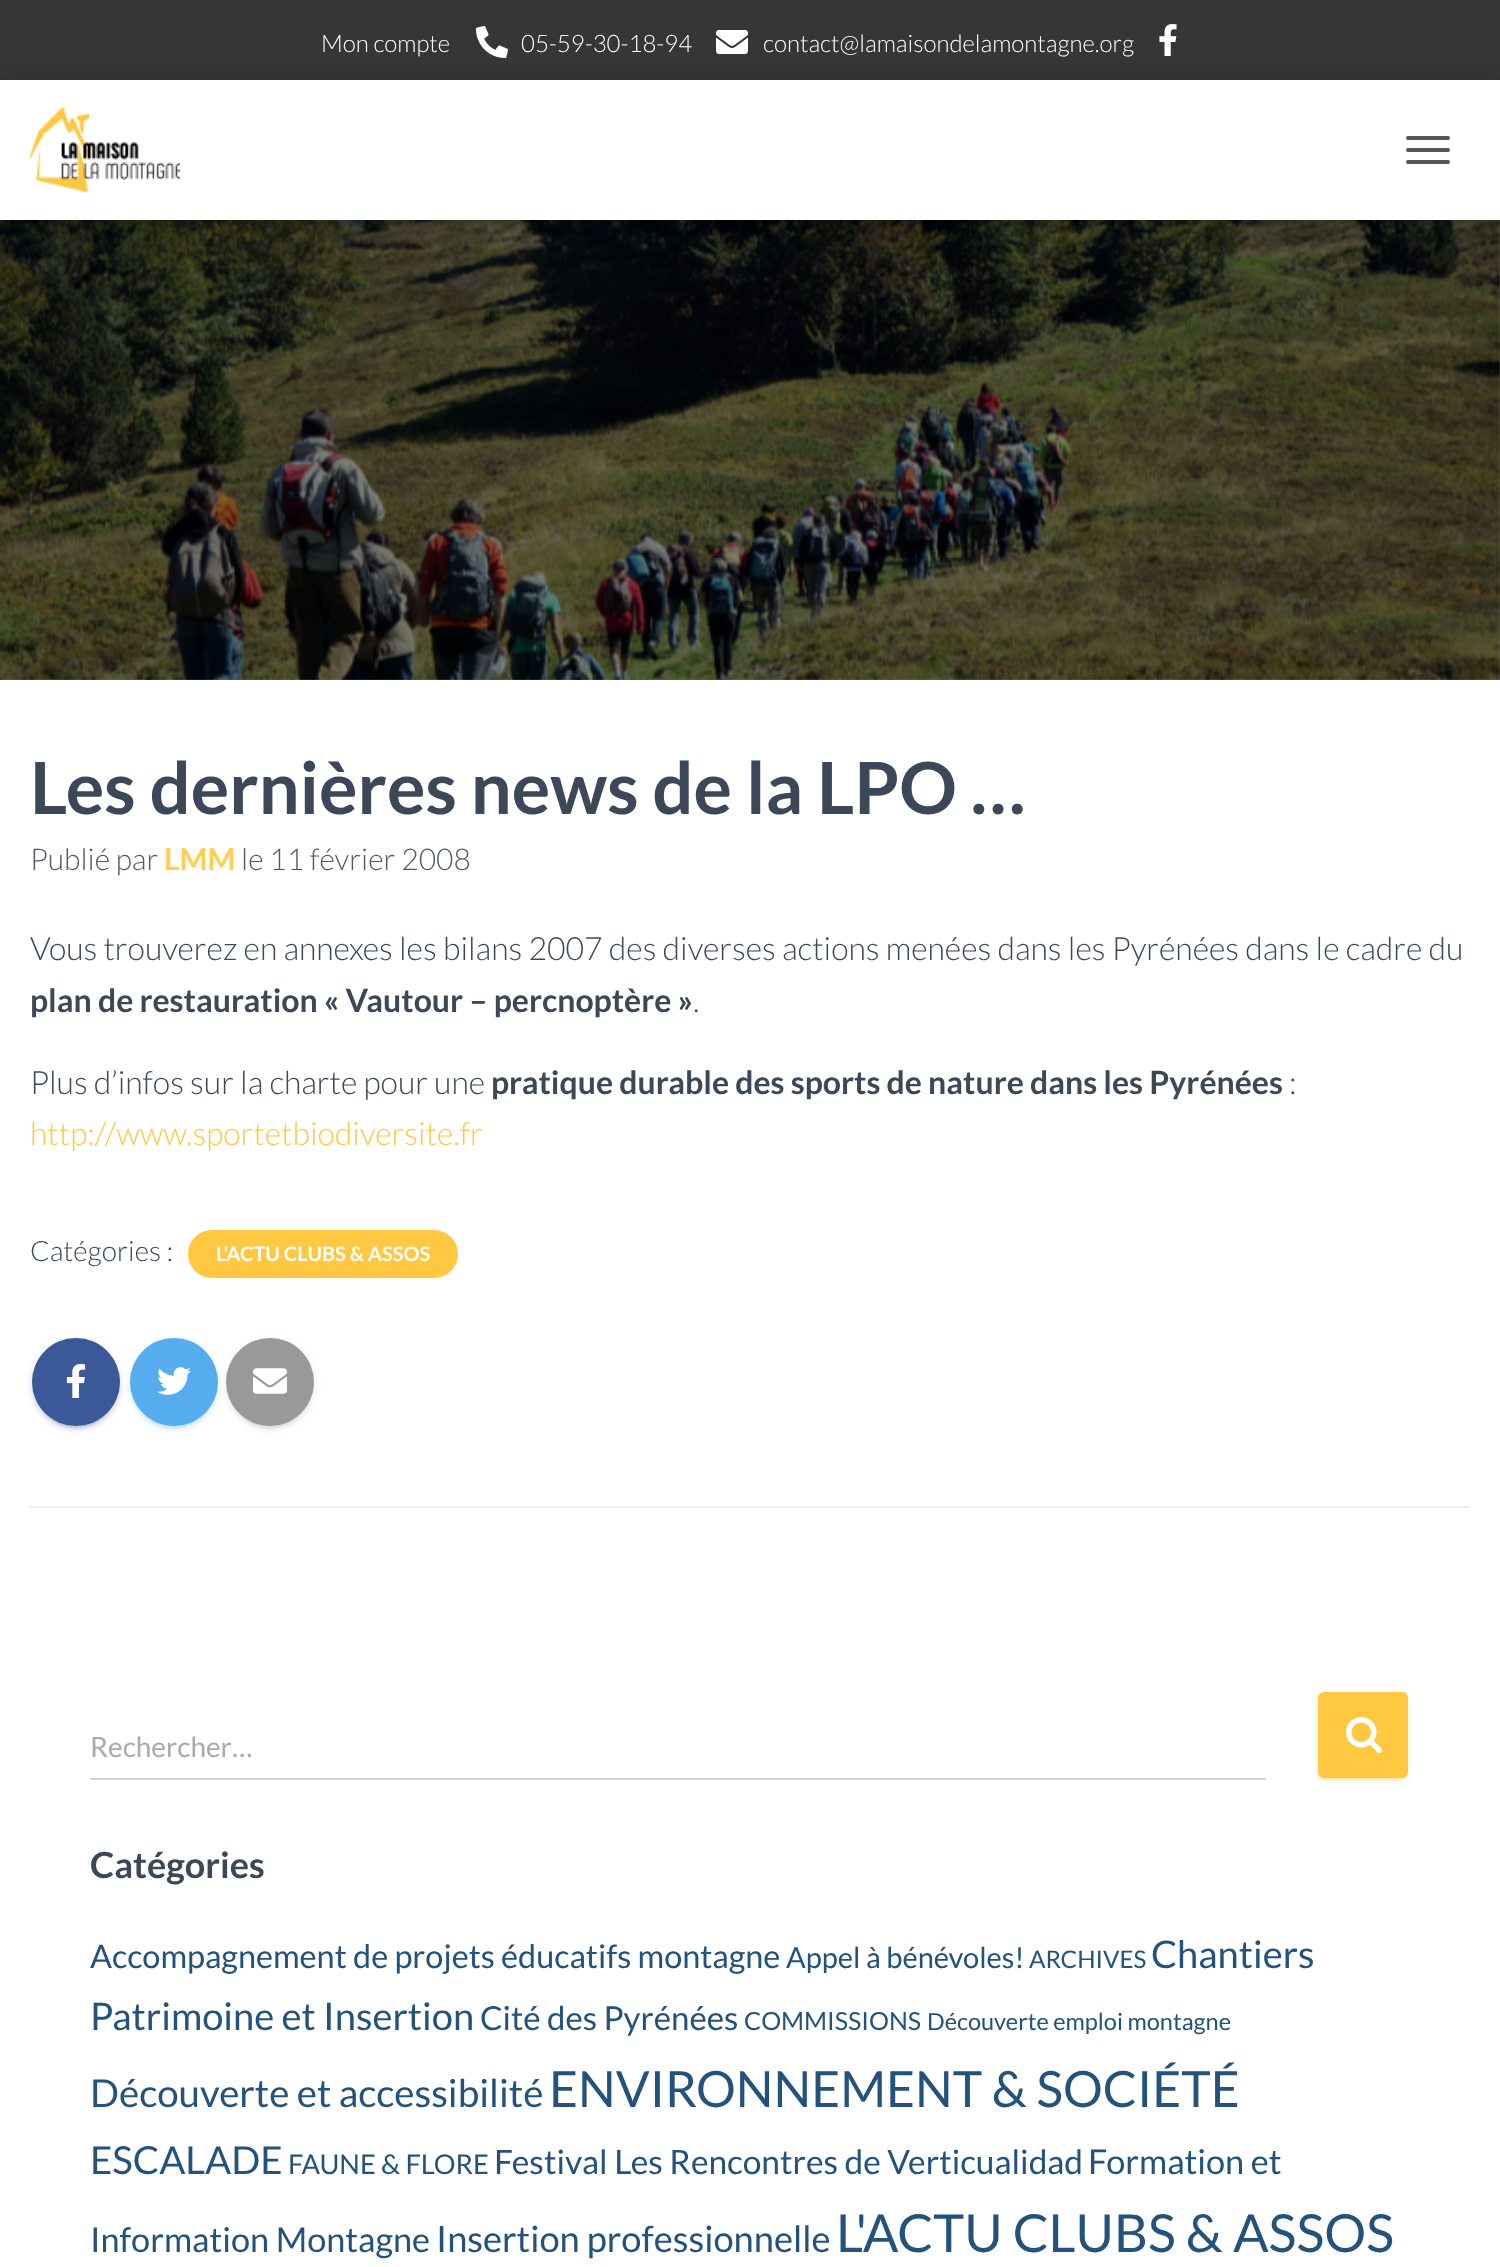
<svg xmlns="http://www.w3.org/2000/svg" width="1500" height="2267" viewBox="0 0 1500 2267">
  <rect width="100%" height="100%" fill="#737373"/>
  <path d="M0 0h1500v80H0z" fill="#363537"/>
  <image x="476" y="26" width="32" height="32" href="img/1.png"/>
  <image x="716" y="30" width="32" height="24" href="img/2.png"/>
  <image x="1159" y="24" width="18" height="32" href="img/3.png"/>
  <image x="0" y="220" width="1500" height="460" href="img/5.png"/>
  <path d="M4 92h1492v132H4z" fill="#0000001a" filter="blur(5px)"/>
  <path d="M0 82h1500v140H0z" fill="#0000001f" filter="blur(10px)"/>
  <path d="M12 94h1476v116H12z" fill="#0000006b" filter="blur(10px)"/>
  <path d="M0 80h1500v140H0z" fill="#fff"/>
  <image x="30" y="105" width="150" height="88" href="img/4.png"/>
  <rect x="1406" y="136" width="44" height="4" rx="2" fill="#555"/>
  <rect x="1406" y="148" width="44" height="4" rx="2" fill="#555"/>
  <rect x="1406" y="160" width="44" height="4" rx="2" fill="#555"/>
  <path d="M0 680h1500v1587H0z" fill="#fff"/>
  <rect x="188" y="1230" width="270" height="48" rx="24" fill="#ffc840"/>
  <rect x="32" y="1340" width="88" height="88" rx="44" fill="#3b59981f" filter="blur(5px)"/>
  <rect x="36" y="1348" width="80" height="80" rx="40" fill="#3b599833" filter="blur(1px)"/>
  <rect x="32" y="1342" width="88" height="88" rx="44" fill="#3b599824" filter="blur(2px)"/>
  <circle cx="76" cy="1382" r="44" fill="#3b5998"/>
  <image x="66" y="1364" width="20" height="34" href="img/6.png"/>
  <rect x="130" y="1340" width="88" height="88" rx="44" fill="#55acee1f" filter="blur(5px)"/>
  <rect x="134" y="1348" width="80" height="80" rx="40" fill="#55acee33" filter="blur(1px)"/>
  <rect x="130" y="1342" width="88" height="88" rx="44" fill="#55acee24" filter="blur(2px)"/>
  <circle cx="174" cy="1382" r="44" fill="#55acee"/>
  <image x="157" y="1367" width="34" height="28" href="img/7.png"/>
  <rect x="226" y="1340" width="88" height="88" rx="44" fill="#9999991f" filter="blur(5px)"/>
  <rect x="230" y="1348" width="80" height="80" rx="40" fill="#99999933" filter="blur(1px)"/>
  <rect x="226" y="1342" width="88" height="88" rx="44" fill="#99999924" filter="blur(2px)"/>
  <circle cx="270" cy="1382" r="44" fill="#999"/>
  <image x="253" y="1368" width="34" height="26" href="img/8.png"/>
  <path d="M30 1506h1440v2H30z" fill="#eee"/>
  <path d="M90 1778h1176v2H90z" fill="#d2d2d2"/>
  <rect x="1318" y="1694" width="90" height="86" rx="6" fill="#ffc8401f" filter="blur(5px)"/>
  <rect x="1322" y="1702" width="82" height="78" rx="2" fill="#ffc84033" filter="blur(1px)"/>
  <rect x="1318" y="1696" width="90" height="86" rx="6" fill="#ffc84024" filter="blur(2px)"/>
  <rect x="1318" y="1692" width="90" height="86" rx="6" fill="#ffc840"/>
  <image x="1346" y="1717" width="36" height="36" href="img/9.png"/>
  <g font-family="Lato" font-size="24" font-weight="300" fill="#fff">
    <text x="321" y="52">Mon compte</text>
    <text x="521" y="52">05-59-30-18-94</text>
    <text x="763" y="52">contact@lamaisondelamontagne.org</text>
  </g>
  <text x="30" y="814" font-family="Lato" font-size="72" font-weight="bold" fill="#3c4858">Les dernières news de la LPO …</text>
  <text x="30" y="870" font-family="Lato" font-size="30" font-weight="300" fill="#505a69">Publié par</text>
  <text x="164" y="870" font-family="Lato" font-size="30" font-weight="bold" fill="#ffce53">LMM</text>
  <text x="241" y="870" font-family="Lato" font-size="30" font-weight="300" fill="#505a69">le 11 février 2008</text>
  <text x="30" y="960" font-family="Lato" font-size="32" font-weight="300" fill="#3c4858">Vous trouverez en annexes les bilans 2007 des diverses actions menées dans les Pyrénées dans le cadre du</text>
  <text x="30" y="1012" font-family="Lato" font-size="32" font-weight="bold" fill="#3c4858">plan de restauration « Vautour – percnoptère »</text>
  <g font-family="Lato" font-size="32" font-weight="300" fill="#3c4858">
    <text x="693" y="1012">.</text>
    <text x="30" y="1094">Plus d’infos sur la charte pour une</text>
  </g>
  <text x="491" y="1094" font-family="Lato" font-size="32" font-weight="bold" fill="#3c4858">pratique durable des sports de nature dans les Pyrénées</text>
  <text x="1289" y="1094" font-family="Lato" font-size="32" font-weight="300" fill="#3c4858">:</text>
  <text x="30" y="1145" font-family="Lato" font-size="32" font-weight="300" fill="#ffc840">http://www.sportetbiodiversite.fr</text>
  <text x="30" y="1261" font-family="Lato" font-size="28" font-weight="300" fill="#3c4858">Catégories :</text>
  <text x="216" y="1261" font-family="Lato" font-size="20" font-weight="bold" fill="#fff">L'ACTU CLUBS &amp; ASSOS</text>
  <text x="90" y="1757" font-family="Lato" font-size="28" fill="#aaa">Rechercher…</text>
  <text x="90" y="1878" font-family="Lato" font-size="36" font-weight="bold" fill="#3c4858">Catégories</text>
  <text x="90" y="1968" font-family="Lato" font-size="32.45" fill="#23527c">Accompagnement de projets éducatifs montagne</text>
  <text x="786" y="1968" font-family="Lato" font-size="29" fill="#23527c">Appel à bénévoles!</text>
  <text x="1029" y="1968" font-family="Lato" font-size="24.25" fill="#23527c">ARCHIVES</text>
  <g font-family="Lato" font-size="38.1" fill="#23527c">
    <text x="1151" y="1968">Chantiers</text>
    <text x="90" y="2030">Patrimoine et Insertion</text>
  </g>
  <text x="480" y="2030" font-family="Lato" font-size="33" fill="#23527c">Cité des Pyrénées</text>
  <text x="744" y="2030" font-family="Lato" font-size="25" fill="#23527c">COMMISSIONS</text>
  <text x="927" y="2030" font-family="Lato" font-size="23.5" fill="#23527c">Découverte emploi montagne</text>
  <text x="90" y="2107" font-family="Lato" font-size="38.5" fill="#23527c">Découverte et accessibilité</text>
  <text x="549" y="2107" font-family="Lato" font-size="49.9" fill="#23527c">ENVIRONNEMENT &amp; SOCIÉTÉ</text>
  <text x="90" y="2174" font-family="Lato" font-size="38.5" fill="#23527c">ESCALADE</text>
  <text x="288" y="2174" font-family="Lato" font-size="27.25" fill="#23527c">FAUNE &amp; FLORE</text>
  <text x="494" y="2174" font-family="Lato" font-size="33.5" fill="#23527c">Festival Les Rencontres de Verticualidad</text>
  <g font-family="Lato" font-size="34.25" fill="#23527c">
    <text x="1088" y="2174">Formation et</text>
    <text x="90" y="2252">Information Montagne</text>
  </g>
  <text x="436" y="2252" font-family="Lato" font-size="36.25" fill="#23527c">Insertion professionnelle</text>
  <text x="836" y="2252" font-family="Lato" font-size="52.5" fill="#23527c">L'ACTU CLUBS &amp; ASSOS</text>
</svg>
